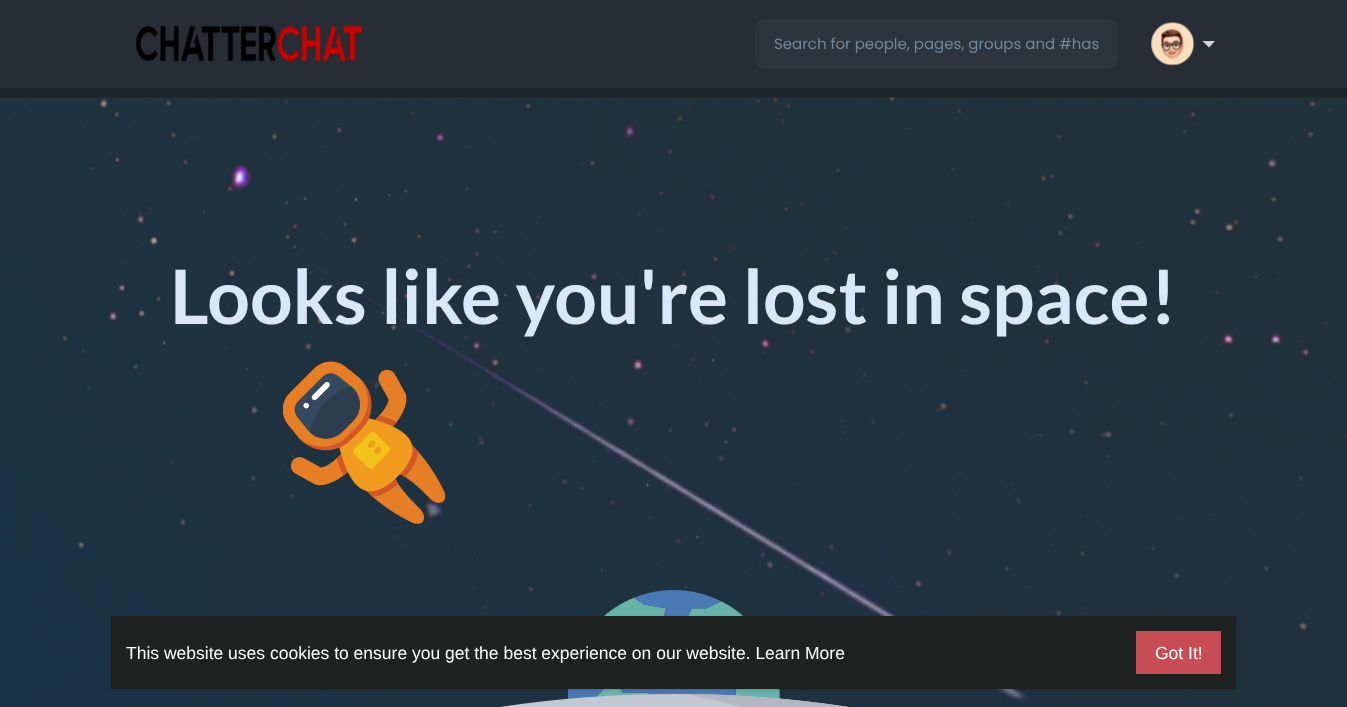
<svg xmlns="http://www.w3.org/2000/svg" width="1347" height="707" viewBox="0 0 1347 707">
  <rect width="100%" height="100%" fill="#1e252b"/>
  <path d="M0 0h1347v88H0z" fill="#262d34"/>
  <image x="136" y="26" width="226" height="36" href="img/1.png"/>
  <rect x="755" y="19" width="363" height="50" rx="10" fill="#2c353d"/>
  <image x="1151" y="22" width="44" height="44" href="img/2.png"/>
  <path d="M1202.5 41H1215L1209 47.5Z" fill="#d3d3d3"/>
  <image x="0" y="97" width="1347" height="610" href="img/3.png"/>
  <image x="282" y="361" width="164" height="163" href="img/4.png"/>
  <image x="568" y="590" width="212" height="109" href="img/5.png"/>
  <image x="500" y="694" width="349" height="13" href="img/6.png"/>
  <path d="M111 618h1125v72H111z" fill="#0000000f" filter="blur(1px)"/>
  <path d="M111 618h1125v72H111z" fill="#0000001a" filter="blur(2px)"/>
  <path d="M111 616h1125v73H111z" fill="#1e2321"/>
  <path d="M1136 631h85v43H1136z" fill="#c64d53"/>
  <text x="774" y="49" font-family="Poppins" font-size="15" fill="#72879a">Search for people, pages, groups and #has</text>
  <text x="170" y="324" font-family="Lato" font-size="75" font-weight="bold" fill="#d9e7f9">Looks like you're lost in space!</text>
  <g font-family="Liberation Sans" font-size="17.5" fill="#fff">
    <text x="126" y="659">This website uses cookies to ensure you get the best experience on our website. Learn More</text>
    <text x="1155" y="659">Got It!</text>
  </g>
</svg>
